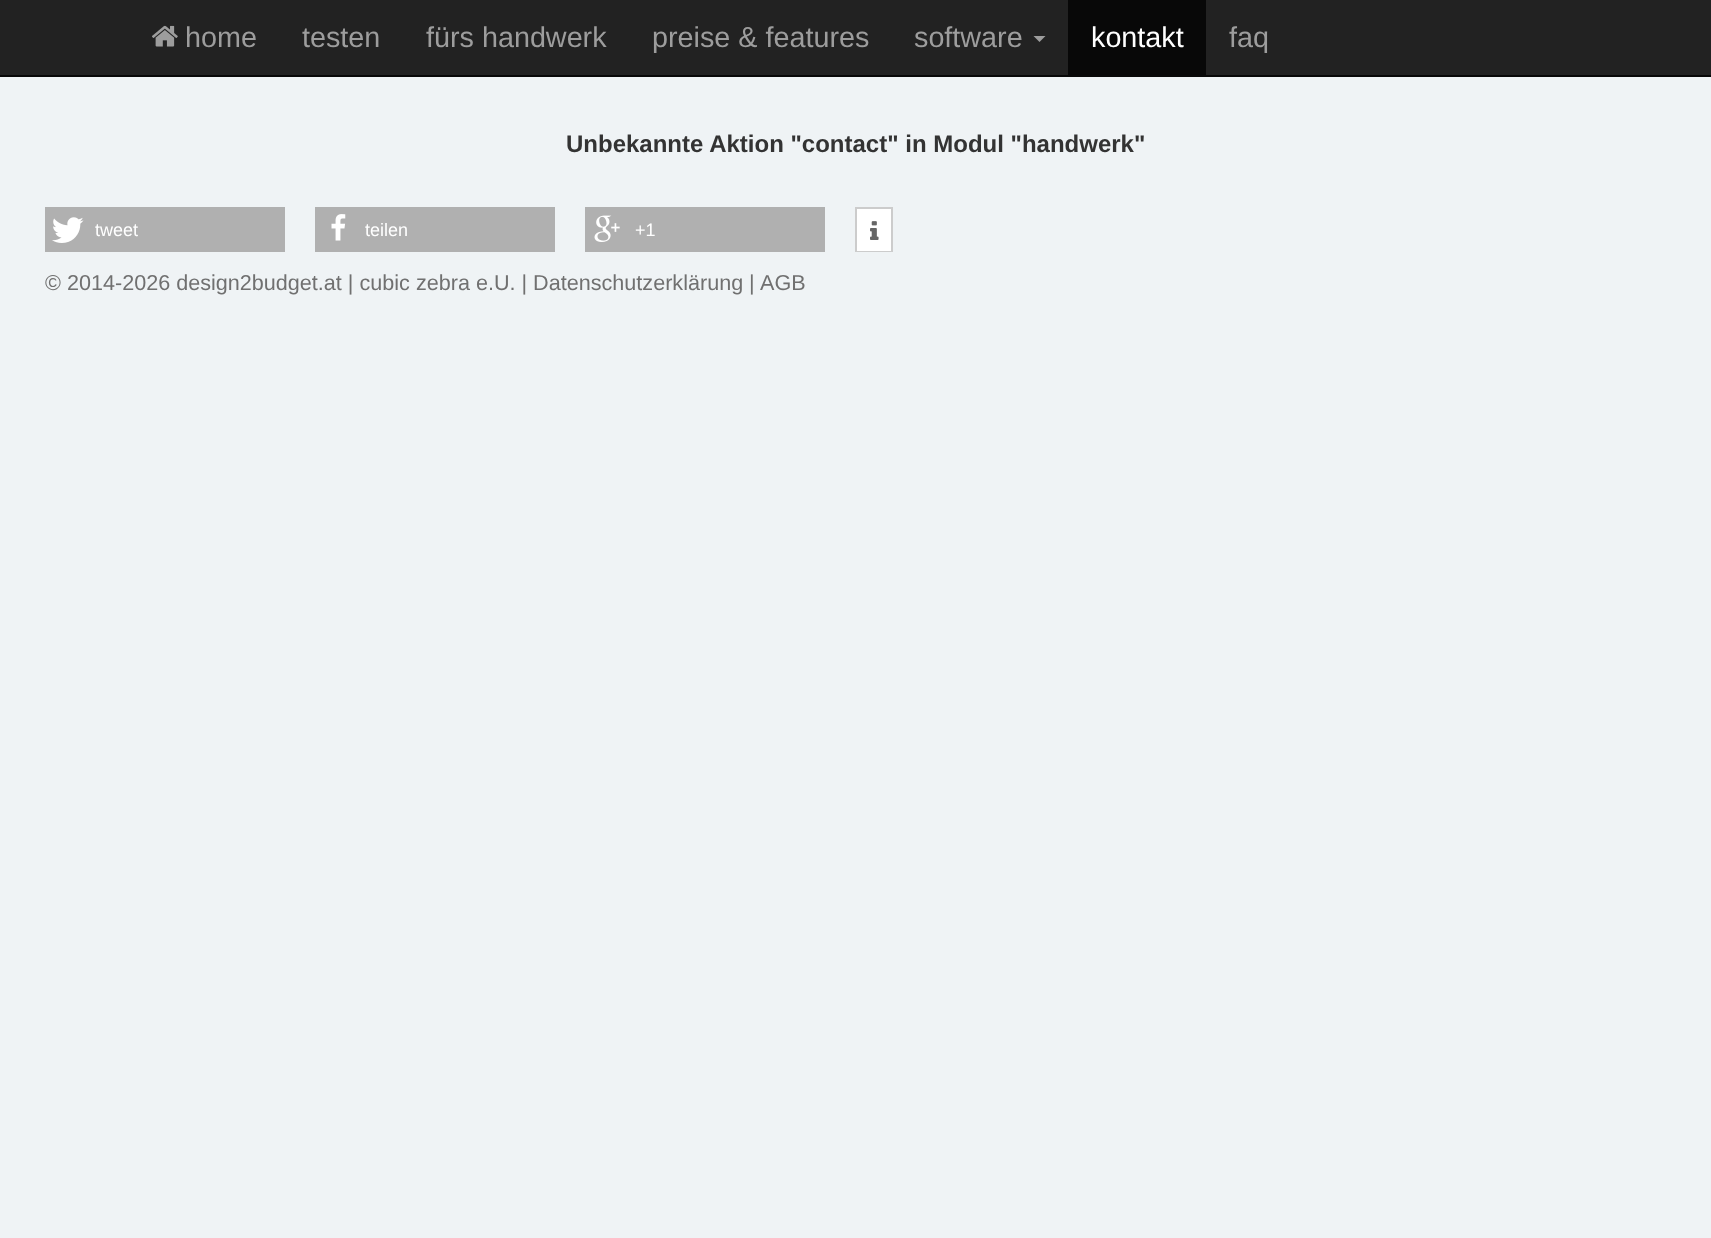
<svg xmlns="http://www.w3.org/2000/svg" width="1711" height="1238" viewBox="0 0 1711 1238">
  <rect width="100%" height="100%" fill="#eff3f5"/>
  <path d="M0 0h1711v75H0z" fill="#222"/>
  <path d="M0 75h1711v2H0z" fill="#080808"/>
  <image x="152" y="25" width="26" height="22" href="img/1.png"/>
  <path d="M1033.5 36H1045.5L1039.5 42Z" fill="#9d9d9d"/>
  <path d="M1068 0h138v75H1068z" fill="#080808"/>
  <path d="M45 207h240v45H45z" fill="#b0b0b0"/>
  <image x="52" y="217" width="32" height="26" href="img/2.png"/>
  <path d="M315 207h240v45H315z" fill="#b0b0b0"/>
  <image x="331" y="214" width="15" height="27" href="img/3.png"/>
  <path d="M585 207h240v45H585z" fill="#b0b0b0"/>
  <image x="594" y="215" width="26" height="27" href="img/4.png"/>
  <path d="M856 208h36v43H856z" fill="none" stroke="#ccc" stroke-width="2"/>
  <path d="M857 209h34v42H857z" fill="#fff"/>
  <image x="870" y="221" width="9" height="19" href="img/5.png"/>
  <g font-family="Liberation Sans" font-size="28.75" fill="#9d9d9d">
    <text x="185" y="47">home</text>
    <text x="302" y="47">testen</text>
    <text x="426" y="47">fürs handwerk</text>
    <text x="652" y="47">preise &amp; features</text>
    <text x="914" y="47">software</text>
  </g>
  <text x="1091" y="47" font-family="Liberation Sans" font-size="28.75" fill="#fff">kontakt</text>
  <text x="1229" y="47" font-family="Liberation Sans" font-size="28.75" fill="#9d9d9d">faq</text>
  <text x="566" y="152" font-family="Liberation Sans" font-size="24" font-weight="bold" fill="#333">Unbekannte Aktion "contact" in Modul "handwerk"</text>
  <g font-family="Liberation Sans" font-size="18" fill="#fff">
    <text x="95" y="236">tweet</text>
    <text x="365" y="236">teilen</text>
    <text x="635" y="236">+1</text>
  </g>
  <g font-family="Liberation Sans" font-size="21.6" fill="#707070">
    <text x="45" y="290">© 2014-2026 design2budget.at | cubic zebra e.U. | Datenschutzerklärung</text>
    <text x="749" y="290">|</text>
    <text x="760" y="290">AGB</text>
  </g>
</svg>
